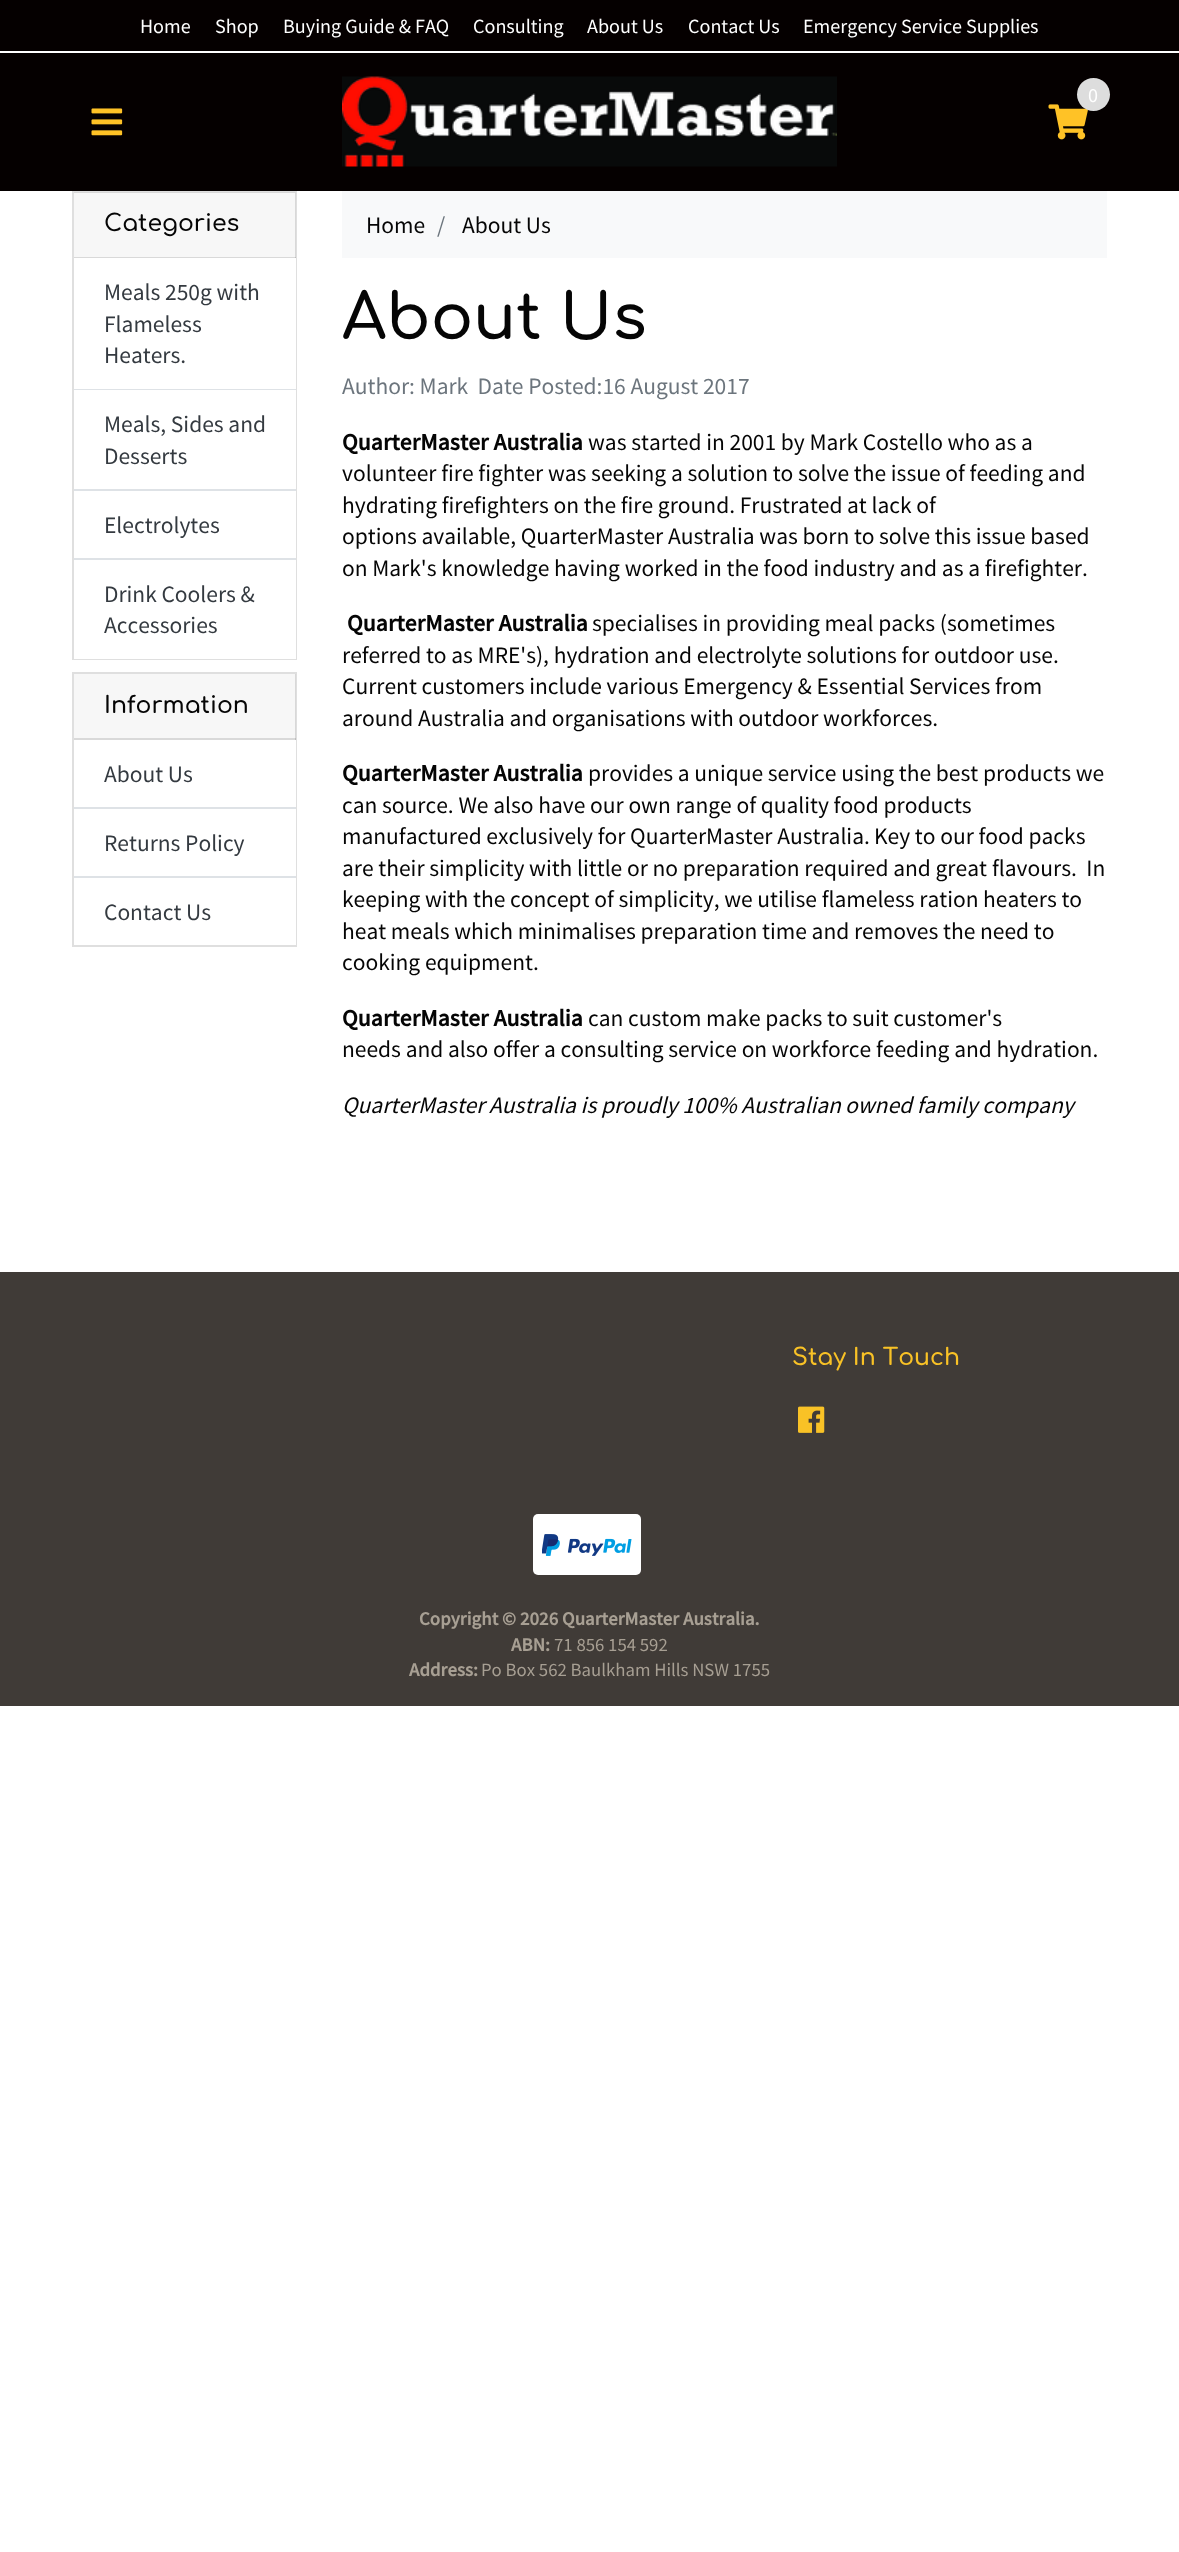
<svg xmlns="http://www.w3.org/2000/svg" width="1179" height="2552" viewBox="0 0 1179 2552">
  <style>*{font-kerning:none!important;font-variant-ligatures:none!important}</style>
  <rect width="100%" height="100%" fill="#fff"/>
  <path d="M0 0h1179v191H0z" fill="#050000"/>
  <path d="M0 51h1179v2H0z" fill="#fff"/>
  <image x="342" y="76" width="495" height="91" href="img/1.png"/>
  <image x="1048" y="104" width="40" height="36" href="img/2.png"/>
  <circle cx="1093.5" cy="94.5" r="16.5" fill="#ddd"/>
  <image x="91" y="108" width="32" height="28" href="img/3.png"/>
  <path d="M73 192h223v467H73z" fill="none" stroke="#dfdfdf" stroke-width="2"/>
  <path d="M74 192h222v66H74z" fill="#00000008"/>
  <path d="M74 257h222v1H74z" fill="#0000001f"/>
  <path d="M74 389h222v1H74z" fill="#dee2e6"/>
  <path d="M295 258h1v131H295z" fill="#fff"/>
  <path d="M74 489h222v2H74z" fill="#dee2e6"/>
  <path d="M295 390h1v99H295z" fill="#fff"/>
  <path d="M74 558h222v2H74z" fill="#dee2e6"/>
  <path d="M295 491h1v67H295z" fill="#fff"/>
  <path d="M74 560h222v99H74z" fill="#fff"/>
  <path d="M73 673h223v273H73z" fill="none" stroke="#dfdfdf" stroke-width="2"/>
  <path d="M74 674h222v66H74z" fill="#00000008"/>
  <path d="M74 738h222v2H74z" fill="#0000001f"/>
  <path d="M74 807h222v2H74z" fill="#dee2e6"/>
  <path d="M295 740h1v67H295z" fill="#fff"/>
  <path d="M74 876h222v2H74z" fill="#dee2e6"/>
  <path d="M295 809h1v67H295z" fill="#fff"/>
  <path d="M295 878h1v67H295z" fill="#fff"/>
  <path d="M342 191h765v67H342z" fill="#f8f9fa"/>
  <path d="M0 1272h1179v434H0z" fill="#403b37"/>
  <image x="798" y="1406" width="27" height="27" href="img/4.png"/>
  <rect x="533" y="1514" width="108" height="61" rx="5" fill="#fff"/>
  <image x="542" y="1534" width="90" height="22" href="img/5.png"/>
  <g font-family="Noto Sans TC" font-size="18" fill="#fff">
    <text x="140" y="33">Home</text>
    <text x="215" y="33">Shop</text>
    <text x="283" y="33">Buying Guide &amp; FAQ</text>
    <text x="473" y="33">Consulting</text>
    <text x="587" y="33">About Us</text>
    <text x="688" y="33">Contact Us</text>
    <text x="803" y="33">Emergency Service Supplies</text>
    <text x="1088" y="102">0</text>
  </g>
  <text x="104" y="231" font-family="Comfortaa" font-size="23.5" font-weight="600" fill="#050505">Categories</text>
  <g font-family="Noto Sans TC" font-size="21" fill="#343a40">
    <text x="104" y="300">Meals 250g with</text>
    <text x="104" y="332">Flameless</text>
    <text x="104" y="363">Heaters.</text>
    <text x="104" y="432">Meals, Sides and</text>
    <text x="104" y="464">Desserts</text>
    <text x="104" y="533">Electrolytes</text>
    <text x="104" y="602">Drink Coolers &amp;</text>
    <text x="104" y="633">Accessories</text>
  </g>
  <text x="104" y="713" font-family="Comfortaa" font-size="23.5" font-weight="600" fill="#050505">Information</text>
  <g font-family="Noto Sans TC" font-size="21" fill="#343a40">
    <text x="104" y="782">About Us</text>
    <text x="104" y="851">Returns Policy</text>
    <text x="104" y="920">Contact Us</text>
  </g>
  <text x="366" y="233" font-family="Noto Sans TC" font-size="21" fill="#050505">Home</text>
  <text x="437" y="233" font-family="Noto Sans TC" font-size="21" fill="#6c757d">/</text>
  <text x="462" y="233" font-family="Noto Sans TC" font-size="21" fill="#050505">About Us</text>
  <text x="342" y="339" font-family="Comfortaa" font-size="63" font-weight="600" fill="#050505">About Us</text>
  <text x="342" y="394" font-family="Noto Sans TC" font-size="21" fill="#6c757d" xml:space="preserve">Author: Mark  Date Posted:16 August 2017</text>
  <text x="342" y="450" font-family="Noto Sans TC" font-size="21" font-weight="bold" fill="#050505">QuarterMaster Australia</text>
  <g font-family="Noto Sans TC" font-size="21" fill="#050505">
    <text x="588" y="450">was started in 2001 by Mark Costello who as a</text>
    <text x="342" y="481">volunteer fire fighter was seeking a solution to solve the issue of feeding and</text>
    <text x="342" y="513">hydrating firefighters on the fire ground. Frustrated</text>
    <text x="847" y="513">at lack of</text>
    <text x="342" y="544">options available, QuarterMaster Australia was born to</text>
    <text x="879" y="544">solve this issue based</text>
    <text x="342" y="576">on Mark's knowledge having worked in the food industry and as a firefighter.</text>
  </g>
  <text x="347" y="631" font-family="Noto Sans TC" font-size="21" font-weight="bold" fill="#050505">QuarterMaster Australia</text>
  <g font-family="Noto Sans TC" font-size="21" fill="#050505">
    <text x="592" y="631">specialises in providing meal packs (sometimes</text>
    <text x="342" y="663">referred to as MRE's), hydration and electrolyte solutions for</text>
    <text x="934" y="663">outdoor use.</text>
    <text x="342" y="694">Current customers include various Emergency &amp; Essential Services from</text>
    <text x="342" y="726">around Australia and organisations with outdoor workforces.</text>
  </g>
  <text x="342" y="781" font-family="Noto Sans TC" font-size="21" font-weight="bold" fill="#050505">QuarterMaster Australia</text>
  <g font-family="Noto Sans TC" font-size="21" fill="#050505">
    <text x="588" y="781">provides a unique service using the best products we</text>
    <text x="342" y="813">can source. We also have our own range of quality food products</text>
    <text x="342" y="844">manufactured exclusively for QuarterMaster Australia.</text>
    <text x="874" y="844">Key to our food packs</text>
    <text x="342" y="876">are their simplicity with little or no preparation required and great</text>
    <text x="992" y="876" xml:space="preserve">flavours.  In</text>
    <text x="342" y="907">keeping with the concept of simplicity, we utilise flameless ration</text>
    <text x="983" y="907">heaters to</text>
    <text x="342" y="939">heat meals which minimalises preparation time and removes the need to</text>
    <text x="342" y="970">cooking equipment.</text>
  </g>
  <text x="342" y="1026" font-family="Noto Sans TC" font-size="21" font-weight="bold" fill="#050505">QuarterMaster Australia</text>
  <g font-family="Noto Sans TC" font-size="21" fill="#050505">
    <text x="588" y="1026">can custom make packs to suit customer's</text>
    <text x="342" y="1057">needs and also offer a consulting service on workforce feeding and hydration.</text>
  </g>
  <text x="342" y="1113" font-family="Noto Sans TC" font-size="21" font-style="italic" fill="#050505">QuarterMaster Australia is proudly 100% Australian</text>
  <text x="845" y="1113" font-family="Noto Sans TC" font-size="21" font-style="italic" fill="#050505">owned family company</text>
  <text x="792" y="1365" font-family="Comfortaa" font-size="23.5" font-weight="600" fill="#f9c226">Stay In Touch</text>
  <g font-family="Noto Sans TC" font-size="16.8" font-weight="bold" fill="#a79f93">
    <text x="419" y="1625">Copyright © 2026 QuarterMaster Australia.</text>
    <text x="511" y="1651">ABN:</text>
  </g>
  <text x="554" y="1651" font-family="Noto Sans TC" font-size="16.8" fill="#a79f93">71 856 154 592</text>
  <text x="409" y="1676" font-family="Noto Sans TC" font-size="16.8" font-weight="bold" fill="#a79f93">Address:</text>
  <text x="481" y="1676" font-family="Noto Sans TC" font-size="16.8" fill="#a79f93">Po Box 562 Baulkham Hills NSW 1755</text>
</svg>
